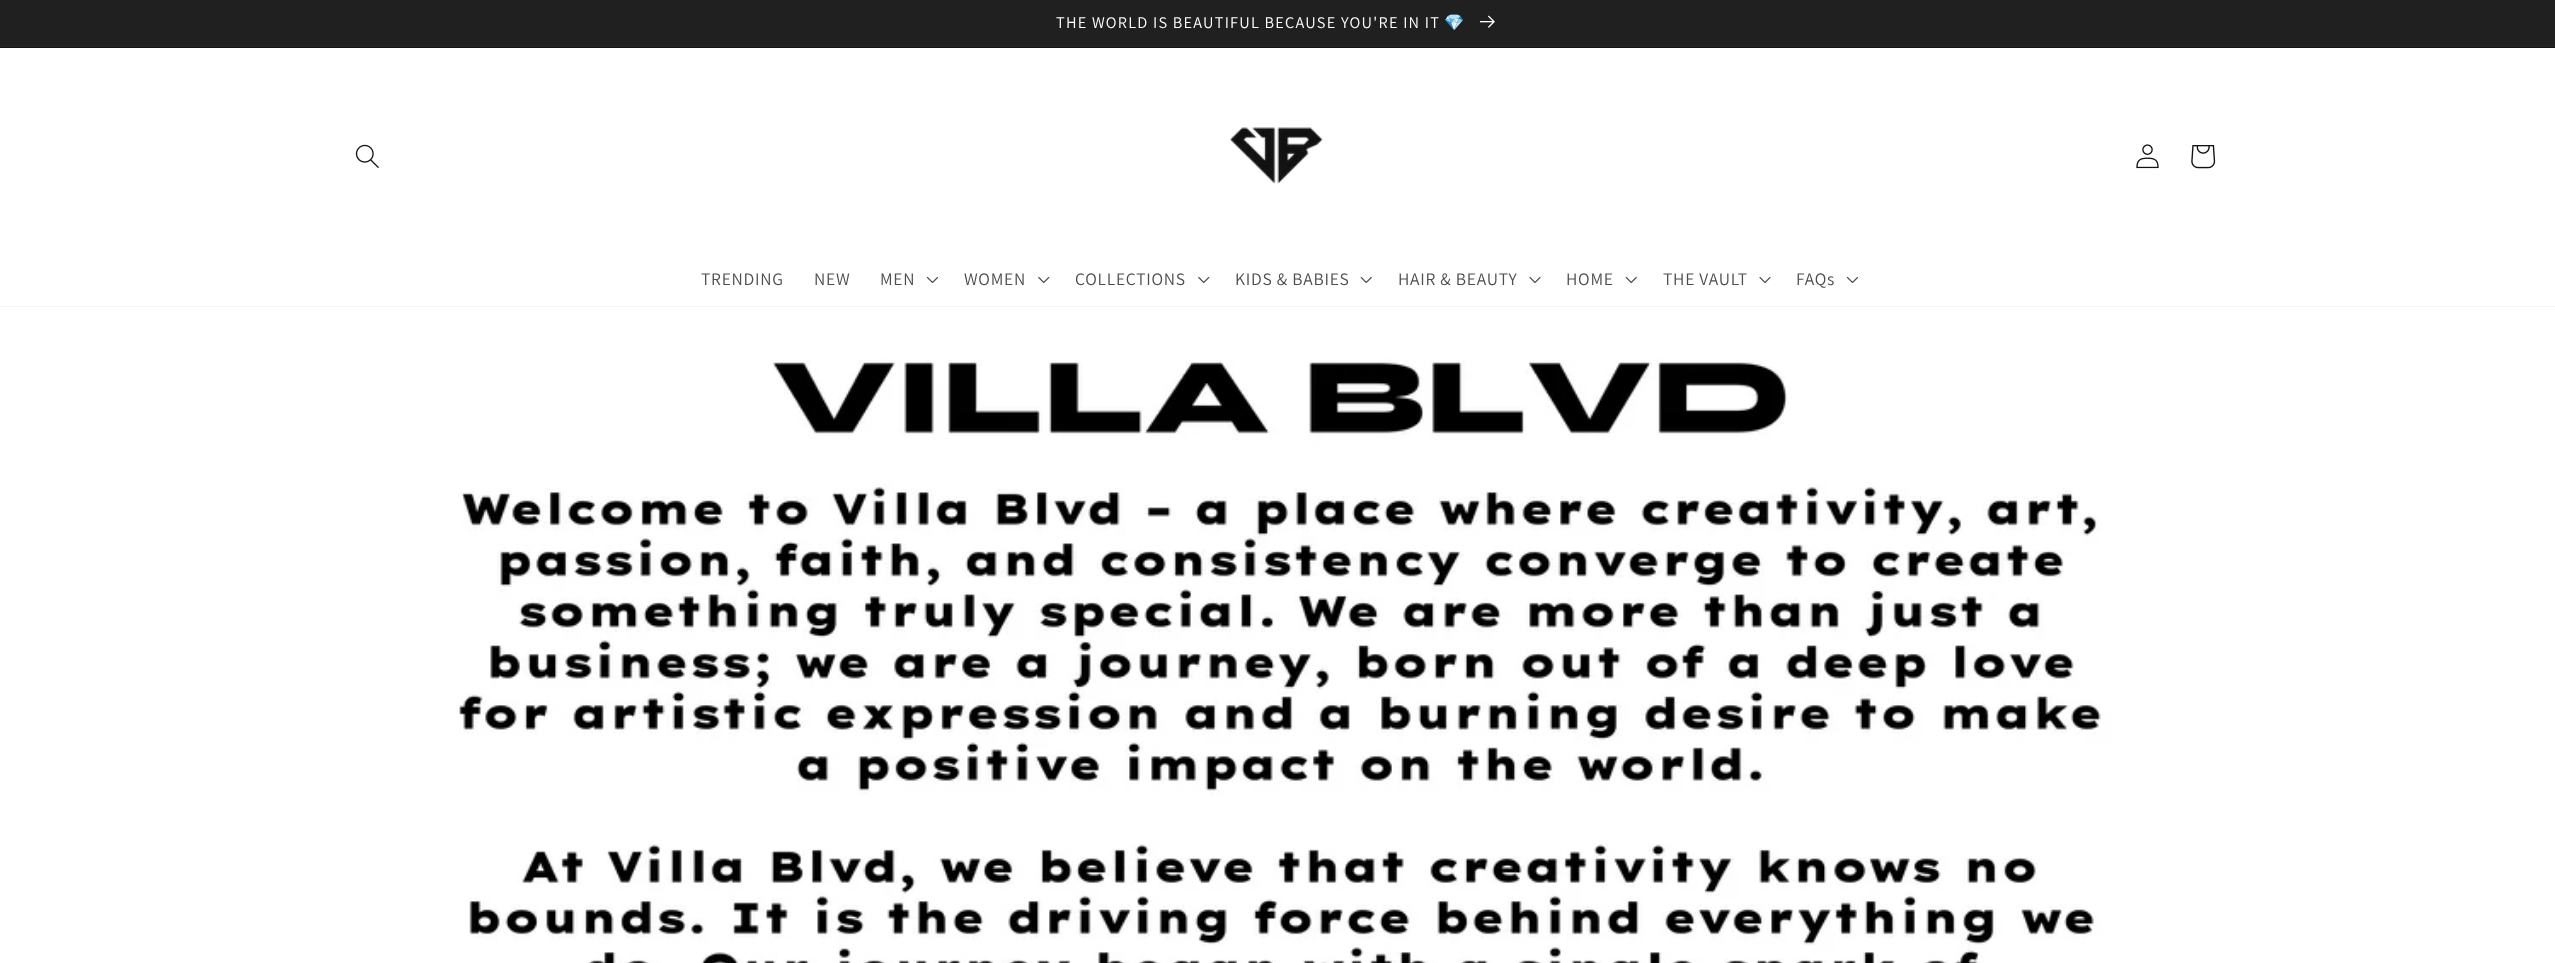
<svg xmlns="http://www.w3.org/2000/svg" width="2555" height="963" viewBox="0 0 2555 963">
  <rect width="100%" height="100%" fill="#fff"/>
  <path d="M0 47h2555v1H0z" fill="#121212"/>
  <path d="M0 46h2555v1H0z" fill="#252525"/>
  <path d="M0 0h2555v46H0z" fill="#202020"/>
  <image x="1480" y="15" width="15" height="13" href="img/1.png"/>
  <image x="355" y="144" width="24" height="24" href="img/2.png"/>
  <image x="1230" y="127" width="93" height="57" href="img/3.png"/>
  <image x="2136" y="144" width="23" height="25" href="img/4.png"/>
  <image x="2191" y="145" width="25" height="24" href="img/5.png"/>
  <image x="926" y="276" width="13" height="8" href="img/6.png"/>
  <image x="1038" y="276" width="12" height="8" href="img/7.png"/>
  <image x="1198" y="276" width="12" height="8" href="img/7.png"/>
  <image x="1360" y="276" width="12" height="8" href="img/8.png"/>
  <image x="1529" y="277" width="12" height="6" href="img/9.png"/>
  <image x="1625" y="276" width="12" height="8" href="img/8.png"/>
  <image x="1759" y="277" width="12" height="6" href="img/9.png"/>
  <image x="1846" y="276" width="13" height="8" href="img/6.png"/>
  <path d="M0 306h2555v1H0z" fill="#e8e8e8"/>
  <image x="0" y="306" width="2555" height="657" href="img/10.png"/>
  <text x="1056" y="28" font-family="Assistant" font-size="16.25" letter-spacing="1.25" fill="#fff">THE WORLD IS BEAUTIFUL BECAUSE YOU'RE IN IT</text>
  <text x="1444" y="28" font-family="Noto Color Emoji" font-size="16.25" letter-spacing="1.25" fill="#fff">💎</text>
  <g font-family="Assistant" font-size="17.5" letter-spacing="0.75" fill="#4d4d4d">
    <text x="701" y="285">TRENDING</text>
    <text x="814" y="285">NEW</text>
    <text x="880" y="285">MEN</text>
    <text x="964" y="285">WOMEN</text>
    <text x="1075" y="285">COLLECTIONS</text>
    <text x="1235" y="285">KIDS &amp; BABIES</text>
    <text x="1398" y="285">HAIR &amp; BEAUTY</text>
    <text x="1566" y="285">HOME</text>
    <text x="1663" y="285">THE VAULT</text>
    <text x="1796" y="285">FAQs</text>
  </g>
</svg>
